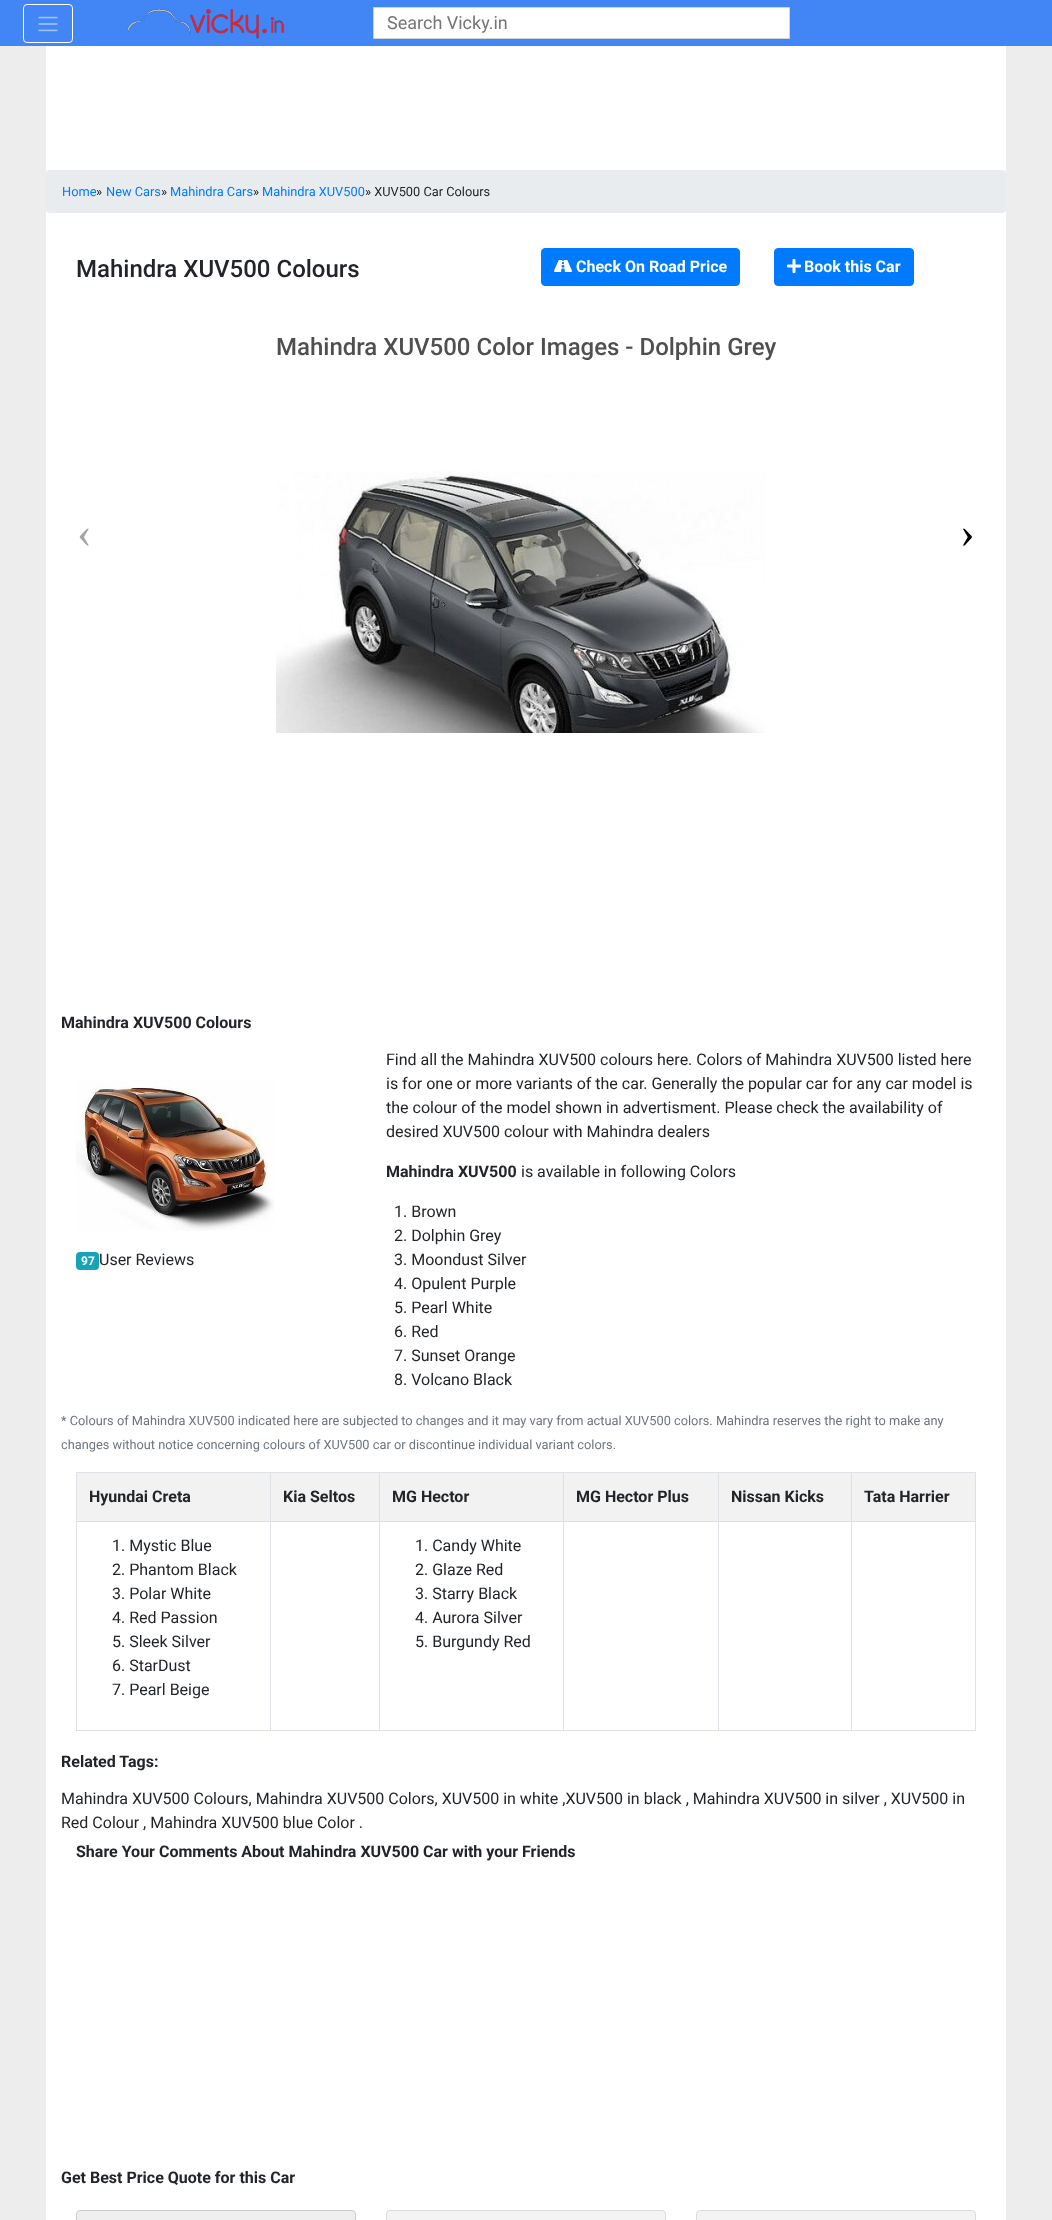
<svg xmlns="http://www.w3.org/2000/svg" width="1052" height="2220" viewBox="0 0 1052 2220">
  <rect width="100%" height="100%" fill="#ededed"/>
  <path d="M46 46h960v2174H46z" fill="#fff"/>
  <path d="M0 0h1052v46H0z" fill="#4285f4"/>
  <rect x="23.5" y="4.5" width="49" height="38" rx="3.5" fill="none" stroke="#fff"/>
  <image x="38" y="16" width="20" height="16" href="img/1.png"/>
  <image x="127" y="9" width="157" height="30" href="img/2.png"/>
  <path d="M373.5 7.5h416v31H373.5z" fill="#fff" stroke="#d3d3d3"/>
  <rect x="46" y="170" width="960" height="43" rx="4" fill="#e9ecef"/>
  <rect x="541.5" y="248.5" width="198" height="37" rx="3.5" fill="#007bff" stroke="#007bff"/>
  <image x="554" y="260" width="18" height="12" href="img/3.png"/>
  <rect x="774.5" y="248.5" width="139" height="37" rx="3.5" fill="#007bff" stroke="#007bff"/>
  <image x="787" y="259" width="14" height="14" href="img/4.png"/>
  <image x="276" y="471" width="490" height="262" href="img/5.png"/>
  <image x="76" y="1080" width="198" height="151" href="img/6.png"/>
  <rect x="76" y="1252" width="23" height="18" rx="4" fill="#17a2b8"/>
  <path d="M77 1473h898v48H77z" fill="#f2f2f2"/>
  <path d="M851 1472h125v1H851z" fill="#dee2e6"/>
  <path d="M851 1521h125v1H851z" fill="#dee2e6"/>
  <path d="M975 1521h1v210H975z" fill="#dee2e6"/>
  <path d="M851 1730h125v1H851z" fill="#dee2e6"/>
  <path d="M851 1521h1v210H851z" fill="#dee2e6"/>
  <path d="M718 1521h134v1H718z" fill="#dee2e6"/>
  <path d="M851 1472h1v50H851z" fill="#dee2e6"/>
  <path d="M718 1472h134v1H718z" fill="#dee2e6"/>
  <path d="M718 1730h134v1H718z" fill="#dee2e6"/>
  <path d="M718 1521h1v210H718z" fill="#dee2e6"/>
  <path d="M563 1521h156v1H563z" fill="#dee2e6"/>
  <path d="M718 1472h1v50H718z" fill="#dee2e6"/>
  <path d="M563 1472h156v1H563z" fill="#dee2e6"/>
  <path d="M563 1730h156v1H563z" fill="#dee2e6"/>
  <path d="M563 1521h1v210H563z" fill="#dee2e6"/>
  <path d="M379 1521h185v1H379z" fill="#dee2e6"/>
  <path d="M563 1472h1v50H563z" fill="#dee2e6"/>
  <path d="M379 1472h185v1H379z" fill="#dee2e6"/>
  <path d="M379 1730h185v1H379z" fill="#dee2e6"/>
  <path d="M379 1521h1v210H379z" fill="#dee2e6"/>
  <path d="M270 1521h110v1H270z" fill="#dee2e6"/>
  <path d="M379 1472h1v50H379z" fill="#dee2e6"/>
  <path d="M270 1472h110v1H270z" fill="#dee2e6"/>
  <path d="M270 1730h110v1H270z" fill="#dee2e6"/>
  <path d="M270 1521h1v210H270z" fill="#dee2e6"/>
  <path d="M76 1521h195v1H76z" fill="#dee2e6"/>
  <path d="M270 1472h1v50H270z" fill="#dee2e6"/>
  <path d="M76 1472h195v1H76z" fill="#dee2e6"/>
  <path d="M76 1730h195v1H76z" fill="#dee2e6"/>
  <path d="M76 1521h1v210H76z" fill="#dee2e6"/>
  <path d="M76 1472h1v50H76z" fill="#dee2e6"/>
  <path d="M975 1472h1v50H975z" fill="#dee2e6"/>
  <rect x="76.5" y="2210.5" width="279" height="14" rx="3.5" fill="#efefef" stroke="#ccc"/>
  <rect x="386.5" y="2210.5" width="279" height="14" rx="3.5" fill="#f4f4f4" stroke="#dbdbdb"/>
  <rect x="696.5" y="2210.5" width="279" height="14" rx="3.5" fill="#f4f4f4" stroke="#dbdbdb"/>
  <text x="387" y="29" font-family="Roboto" font-size="18" fill="#757575">Search Vicky.in</text>
  <text x="62" y="196" font-family="Roboto" font-size="12.8" fill="#007bff">Home</text>
  <text x="96" y="196" font-family="Roboto" font-size="12.8" fill="#212529">»</text>
  <text x="106" y="196" font-family="Roboto" font-size="12.8" fill="#007bff">New Cars</text>
  <text x="161" y="196" font-family="Roboto" font-size="12.8" fill="#212529">»</text>
  <text x="170" y="196" font-family="Roboto" font-size="12.8" fill="#007bff">Mahindra Cars</text>
  <text x="253" y="196" font-family="Roboto" font-size="12.8" fill="#212529">»</text>
  <text x="262" y="196" font-family="Roboto" font-size="12.8" fill="#007bff">Mahindra XUV500</text>
  <text x="365" y="196" font-family="Roboto" font-size="12.8" fill="#212529">» XUV500 Car Colours</text>
  <text x="76" y="277" font-family="Roboto" font-size="24" font-weight="500" fill="#212529">Mahindra XUV500 Colours</text>
  <g font-family="Roboto" font-size="16" font-weight="bold" fill="#fff">
    <text x="576" y="272">Check On Road Price</text>
    <text x="804" y="272">Book this Car</text>
  </g>
  <text x="276" y="355" font-family="Roboto" font-size="24" font-weight="500" fill="#4f4f4f">Mahindra XUV500 Color Images - Dolphin Grey</text>
  <text x="77" y="547" font-family="Liberation Serif" font-size="44" fill="#a6a6a6">‹</text>
  <text x="960" y="547" font-family="Liberation Serif" font-size="44" fill="#000">›</text>
  <text x="61" y="1028" font-family="Roboto" font-size="16" font-weight="bold" fill="#212529">Mahindra XUV500 Colours</text>
  <text x="81" y="1265" font-family="Roboto" font-size="12" font-weight="bold" fill="#fff">97</text>
  <g font-family="Roboto" font-size="16" fill="#212529">
    <text x="99" y="1265">User Reviews</text>
    <text x="386" y="1065">Find all the Mahindra XUV500 colours here. Colors of Mahindra XUV500 listed here</text>
    <text x="386" y="1089">is for one or more variants of the car. Generally the popular car for any car model is</text>
    <text x="386" y="1113">the colour of the model shown in advertisment. Please check the availability of</text>
    <text x="386" y="1137">desired XUV500 colour with Mahindra dealers</text>
  </g>
  <text x="386" y="1177" font-family="Roboto" font-size="16" font-weight="bold" fill="#212529">Mahindra XUV500</text>
  <g font-family="Roboto" font-size="16" fill="#212529">
    <text x="521" y="1177">is available in following Colors</text>
    <text x="394" y="1217">1. Brown</text>
    <text x="394" y="1241">2. Dolphin Grey</text>
    <text x="394" y="1265">3. Moondust Silver</text>
    <text x="394" y="1289">4. Opulent Purple</text>
    <text x="394" y="1313">5. Pearl White</text>
    <text x="394" y="1337">6. Red</text>
    <text x="394" y="1361">7. Sunset Orange</text>
    <text x="394" y="1385">8. Volcano Black</text>
  </g>
  <g font-family="Roboto" font-size="12.8" fill="#6c757d">
    <text x="61" y="1425">* Colours of Mahindra XUV500 indicated here are subjected to changes and it may vary from actual XUV500 colors. Mahindra reserves the right to make any</text>
    <text x="61" y="1449">changes without notice concerning colours of XUV500 car or discontinue individual variant colors.</text>
  </g>
  <g font-family="Roboto" font-size="16" font-weight="bold" fill="#212529">
    <text x="89" y="1502">Hyundai Creta</text>
    <text x="283" y="1502">Kia Seltos</text>
    <text x="392" y="1502">MG Hector</text>
    <text x="576" y="1502">MG Hector Plus</text>
    <text x="731" y="1502">Nissan Kicks</text>
    <text x="864" y="1502">Tata Harrier</text>
  </g>
  <g font-family="Roboto" font-size="16" fill="#212529">
    <text x="112" y="1551">1. Mystic Blue</text>
    <text x="112" y="1575">2. Phantom Black</text>
    <text x="112" y="1599">3. Polar White</text>
    <text x="112" y="1623">4. Red Passion</text>
    <text x="112" y="1647">5. Sleek Silver</text>
    <text x="112" y="1671">6. StarDust</text>
    <text x="112" y="1695">7. Pearl Beige</text>
    <text x="415" y="1551">1. Candy White</text>
    <text x="415" y="1575">2. Glaze Red</text>
    <text x="415" y="1599">3. Starry Black</text>
    <text x="415" y="1623">4. Aurora Silver</text>
    <text x="415" y="1647">5. Burgundy Red</text>
  </g>
  <text x="61" y="1767" font-family="Roboto" font-size="16" font-weight="bold" fill="#212529">Related Tags:</text>
  <g font-family="Roboto" font-size="16" fill="#212529">
    <text x="61" y="1804">Mahindra XUV500 Colours, Mahindra XUV500 Colors, XUV500 in white ,XUV500 in black , Mahindra XUV500 in silver , XUV500 in</text>
    <text x="61" y="1828">Red Colour , Mahindra XUV500 blue Color .</text>
  </g>
  <g font-family="Roboto" font-size="16" font-weight="bold" fill="#212529">
    <text x="76" y="1857">Share Your Comments About Mahindra XUV500 Car with your Friends</text>
    <text x="61" y="2183">Get Best Price Quote for this Car</text>
  </g>
</svg>
